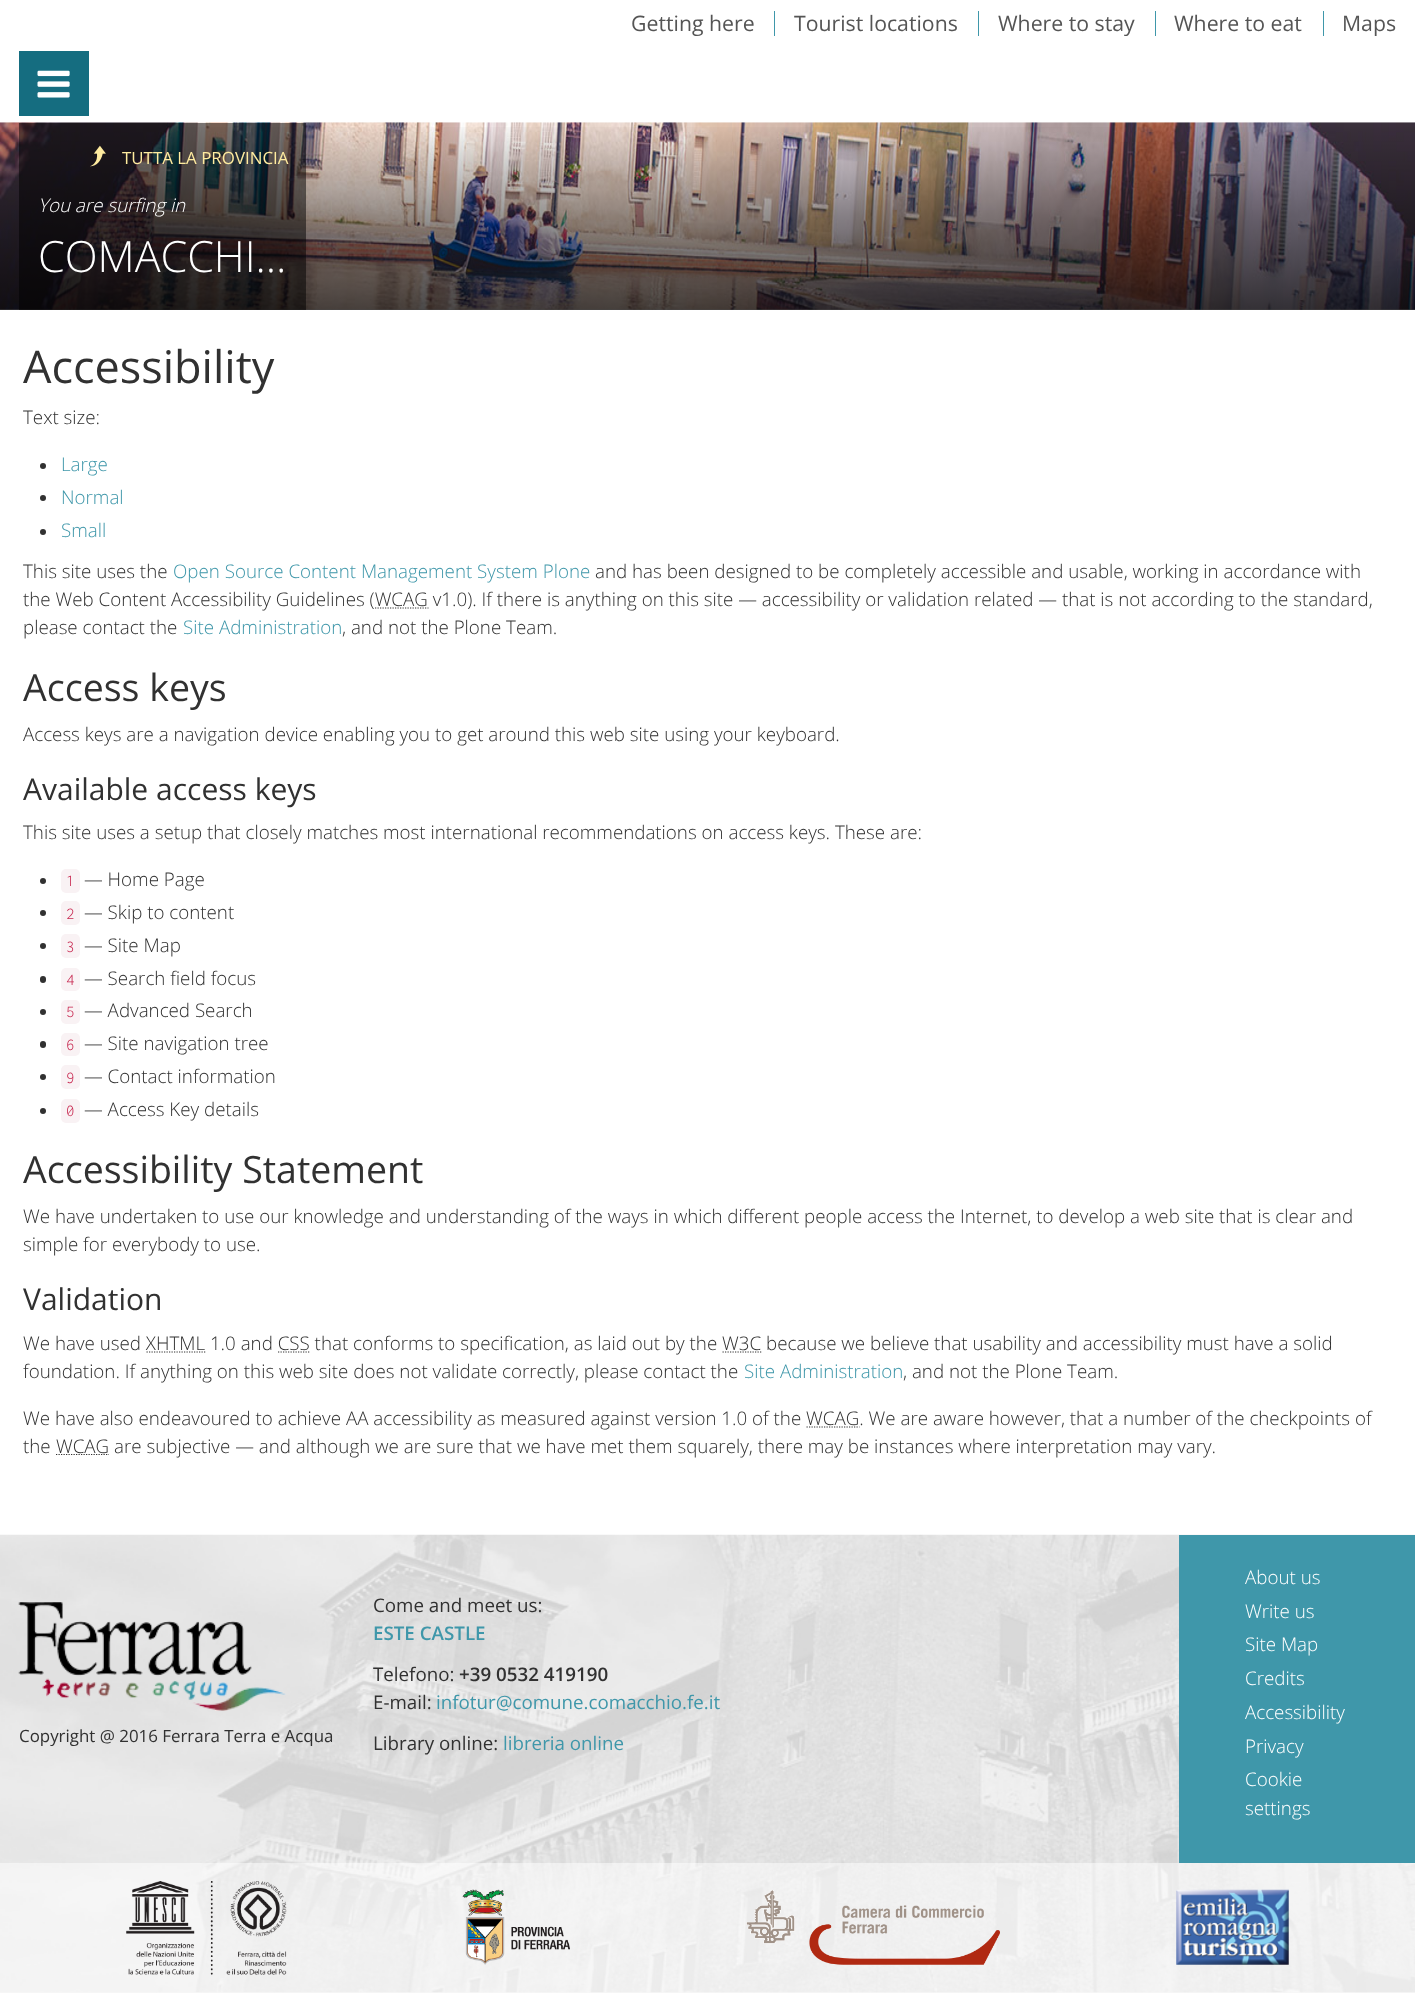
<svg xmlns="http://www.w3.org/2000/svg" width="1415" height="1993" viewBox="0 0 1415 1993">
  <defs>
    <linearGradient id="g1" gradientUnits="userSpaceOnUse" x1="708" y1="122" x2="708" y2="310"><stop offset="0" stop-color="#000" stop-opacity="0"/><stop offset="0.5" stop-color="#000" stop-opacity="0.4"/><stop offset="1" stop-color="#000" stop-opacity="0.7"/></linearGradient>
  </defs>
  <rect width="100%" height="100%" fill="#fff"/>
  <path d="M774 11h1v25H774z" fill="#3f97aa"/>
  <path d="M978 11h1v25H978z" fill="#3f97aa"/>
  <path d="M1155 11h1v25H1155z" fill="#3f97aa"/>
  <path d="M1323 11h1v25H1323z" fill="#3f97aa"/>
  <path d="M19 51h70v65H19z" fill="#156d80"/>
  <image x="37" y="70" width="33" height="28" href="img/1.png"/>
  <path d="M0 309h1415v1H0z" fill="#efedef"/>
  <image x="0" y="122" width="1415" height="188" href="img/2.png"/>
  <path d="M0 127h1415v183H0z" fill="url(#g1)"/>
  <path d="M19 123h287v187H19z" fill="#00000080"/>
  <image x="90" y="145" width="16" height="22" href="img/3.png"/>
  <circle cx="43" cy="466" r="3" fill="#313131"/>
  <circle cx="43" cy="498" r="3" fill="#313131"/>
  <circle cx="43" cy="532" r="3" fill="#313131"/>
  <path d="M375 608H428.5" fill="none" stroke="#313131" stroke-width="1.2" stroke-dasharray="1.25 1.25"/>
  <circle cx="43" cy="881" r="3" fill="#313131"/>
  <rect x="61" y="869" width="19" height="24" rx="5" fill="#f9f2f4"/>
  <circle cx="43" cy="913" r="3" fill="#313131"/>
  <rect x="61" y="901" width="19" height="24" rx="5" fill="#f9f2f4"/>
  <circle cx="43" cy="946" r="3" fill="#313131"/>
  <rect x="61" y="934" width="19" height="24" rx="5" fill="#f9f2f4"/>
  <rect x="40" y="976" width="6" height="7" rx="3" fill="#313131"/>
  <rect x="61" y="968" width="19" height="23" rx="5" fill="#f9f2f4"/>
  <circle cx="43" cy="1012" r="3" fill="#313131"/>
  <rect x="61" y="1000" width="19" height="24" rx="5" fill="#f9f2f4"/>
  <rect x="40" y="1041" width="6" height="7" rx="3" fill="#313131"/>
  <rect x="61" y="1033" width="19" height="23" rx="5" fill="#f9f2f4"/>
  <circle cx="43" cy="1077" r="3" fill="#313131"/>
  <rect x="61" y="1065" width="19" height="24" rx="5" fill="#f9f2f4"/>
  <circle cx="43" cy="1111" r="3" fill="#313131"/>
  <rect x="61" y="1099" width="19" height="24" rx="5" fill="#f9f2f4"/>
  <path d="M146.5 1352H205.5" fill="none" stroke="#313131" stroke-width="1.2" stroke-dasharray="1.25 1.25"/>
  <path d="M278 1352H310" fill="none" stroke="#313131" stroke-width="1.2" stroke-dasharray="1.25 1.25"/>
  <path d="M722.5 1352H761.5" fill="none" stroke="#313131" stroke-width="1.2" stroke-dasharray="1.25 1.25"/>
  <path d="M806.5 1427H859.5" fill="none" stroke="#313131" stroke-width="1.2" stroke-dasharray="1.25 1.25"/>
  <path d="M56 1454.5H109" fill="none" stroke="#313131" stroke-width="1.2" stroke-dasharray="1.25 1.25"/>
  <image x="0" y="1534" width="1415" height="459" href="img/4.png"/>
  <image x="18" y="1602" width="268" height="109" href="img/5.png"/>
  <path d="M1179 1535h236v328H1179z" fill="#3f97aa"/>
  <path d="M0 1863h1415v130H0z" fill="#ffffff80"/>
  <image x="126" y="1881" width="161" height="94" href="img/6.png"/>
  <image x="462" y="1889" width="108" height="76" href="img/7.png"/>
  <image x="746" y="1890" width="254" height="75" href="img/8.png"/>
  <image x="1176" y="1889" width="113" height="76" href="img/9.png"/>
  <g font-family="Open Sans" font-size="21.25" fill="#555">
    <text x="631" y="31">Getting here</text>
    <text x="794" y="31">Tourist locations</text>
    <text x="998" y="31">Where to stay</text>
    <text x="1174" y="31">Where to eat</text>
    <text x="1342" y="31">Maps</text>
  </g>
  <text x="122" y="164" font-family="Open Sans" font-size="16.9" fill="#feeb9f">TUTTA LA PROVINCIA</text>
  <text x="38" y="212" font-family="Open Sans" font-size="18.75" font-weight="300" font-style="italic" fill="#fff">You are surfing in</text>
  <text x="38" y="272" font-family="Open Sans" font-size="43" font-weight="300" fill="#fff">COMACCHI…</text>
  <text x="23" y="383" font-family="Open Sans" font-size="45" fill="#313131">Accessibility</text>
  <text x="23" y="424" font-family="Open Sans" font-size="18.75" font-weight="300" fill="#313131">Text size:</text>
  <g font-family="Open Sans" font-size="18.75" font-weight="300" fill="#3f97aa">
    <text x="61" y="471">Large</text>
    <text x="61" y="504">Normal</text>
    <text x="61" y="537">Small</text>
  </g>
  <text x="23" y="578" font-family="Open Sans" font-size="18.75" font-weight="300" fill="#313131">This site uses the</text>
  <text x="173" y="578" font-family="Open Sans" font-size="18.75" font-weight="300" fill="#3f97aa">Open Source Content Management System Plone</text>
  <g font-family="Open Sans" font-size="18.75" font-weight="300" fill="#313131">
    <text x="595" y="578">and has been designed to be completely accessible and usable, working in accordance with</text>
    <text x="23" y="606">the Web Content Accessibility Guidelines (WCAG v1.0). If there is anything on this site — accessibility or validation related — that is not according to the standard,</text>
    <text x="23" y="634">please contact the</text>
  </g>
  <text x="183" y="634" font-family="Open Sans" font-size="18.75" font-weight="300" fill="#3f97aa">Site Administration</text>
  <text x="342" y="634" font-family="Open Sans" font-size="18.75" font-weight="300" fill="#313131">, and not the Plone Team.</text>
  <text x="23" y="701" font-family="Open Sans" font-size="37.5" fill="#313131">Access keys</text>
  <text x="23" y="741" font-family="Open Sans" font-size="18.75" font-weight="300" fill="#313131">Access keys are a navigation device enabling you to get around this web site using your keyboard.</text>
  <text x="23" y="800" font-family="Open Sans" font-size="30" fill="#313131">Available access keys</text>
  <text x="23" y="839" font-family="Open Sans" font-size="18.75" font-weight="300" fill="#313131">This site uses a setup that closely matches most international recommendations on access keys. These are:</text>
  <text x="66" y="886" font-family="Inconsolata" font-size="16.9" font-weight="300" fill="#c7254e">1</text>
  <text x="84" y="886" font-family="Open Sans" font-size="18.75" font-weight="300" fill="#313131">— Home Page</text>
  <text x="66" y="919" font-family="Inconsolata" font-size="16.9" font-weight="300" fill="#c7254e">2</text>
  <text x="84" y="919" font-family="Open Sans" font-size="18.75" font-weight="300" fill="#313131">— Skip to content</text>
  <text x="66" y="952" font-family="Inconsolata" font-size="16.9" font-weight="300" fill="#c7254e">3</text>
  <text x="84" y="952" font-family="Open Sans" font-size="18.75" font-weight="300" fill="#313131">— Site Map</text>
  <text x="66" y="985" font-family="Inconsolata" font-size="16.9" font-weight="300" fill="#c7254e">4</text>
  <text x="84" y="985" font-family="Open Sans" font-size="18.75" font-weight="300" fill="#313131">— Search field focus</text>
  <text x="66" y="1017" font-family="Inconsolata" font-size="16.9" font-weight="300" fill="#c7254e">5</text>
  <text x="84" y="1017" font-family="Open Sans" font-size="18.75" font-weight="300" fill="#313131">— Advanced Search</text>
  <text x="66" y="1050" font-family="Inconsolata" font-size="16.9" font-weight="300" fill="#c7254e">6</text>
  <text x="84" y="1050" font-family="Open Sans" font-size="18.75" font-weight="300" fill="#313131">— Site navigation tree</text>
  <text x="66" y="1083" font-family="Inconsolata" font-size="16.9" font-weight="300" fill="#c7254e">9</text>
  <text x="84" y="1083" font-family="Open Sans" font-size="18.75" font-weight="300" fill="#313131">— Contact information</text>
  <text x="66" y="1116" font-family="Inconsolata" font-size="16.9" font-weight="300" fill="#c7254e">0</text>
  <text x="84" y="1116" font-family="Open Sans" font-size="18.75" font-weight="300" fill="#313131">— Access Key details</text>
  <text x="23" y="1183" font-family="Open Sans" font-size="37.5" fill="#313131">Accessibility Statement</text>
  <g font-family="Open Sans" font-size="18.75" font-weight="300" fill="#313131">
    <text x="23" y="1223">We have undertaken to use our knowledge and understanding of the ways in which different people access the Internet, to develop a web site that is clear and</text>
    <text x="23" y="1251">simple for everybody to use.</text>
  </g>
  <text x="23" y="1310" font-family="Open Sans" font-size="30" fill="#313131">Validation</text>
  <g font-family="Open Sans" font-size="18.75" font-weight="300" fill="#313131">
    <text x="23" y="1350">We have used XHTML 1.0 and CSS that conforms to specification, as laid out by the W3C because we believe that usability and accessibility must have a solid</text>
    <text x="23" y="1378">foundation. If anything on this web site does not validate correctly, please contact the</text>
  </g>
  <text x="744" y="1378" font-family="Open Sans" font-size="18.75" font-weight="300" fill="#3f97aa">Site Administration</text>
  <g font-family="Open Sans" font-size="18.75" font-weight="300" fill="#313131">
    <text x="903" y="1378">, and not the Plone Team.</text>
    <text x="23" y="1425">We have also endeavoured to achieve AA accessibility as measured against version 1.0 of the WCAG. We are aware however, that a number of the checkpoints of</text>
    <text x="23" y="1453">the</text>
    <text x="56" y="1453">WCAG are subjective — and although we are sure that we have met them squarely, there may be instances where interpretation may vary.</text>
  </g>
  <text x="19" y="1742" font-family="Open Sans" font-size="16.9" fill="#313131">Copyright @ 2016 Ferrara Terra e Acqua</text>
  <text x="373" y="1612" font-family="Open Sans" font-size="18.75" fill="#313131">Come and meet us:</text>
  <text x="373" y="1640" font-family="Open Sans" font-size="18.75" font-weight="600" fill="#3f97aa">ESTE CASTLE</text>
  <text x="373" y="1681" font-family="Open Sans" font-size="18.75" fill="#313131">Telefono:</text>
  <text x="459" y="1681" font-family="Open Sans" font-size="18.75" font-weight="600" fill="#313131">+39 0532 419190</text>
  <text x="373" y="1709" font-family="Open Sans" font-size="18.75" fill="#313131">E-mail:</text>
  <text x="436" y="1709" font-family="Open Sans" font-size="18.75" fill="#3f97aa">infotur@comune.comacchio.fe.it</text>
  <text x="373" y="1750" font-family="Open Sans" font-size="18.75" fill="#313131">Library online:</text>
  <text x="503" y="1750" font-family="Open Sans" font-size="18.75" fill="#3f97aa">libreria online</text>
  <g font-family="Open Sans" font-size="18.75" font-weight="300" fill="#fff">
    <text x="1245" y="1584">About us</text>
    <text x="1245" y="1618">Write us</text>
    <text x="1245" y="1651">Site Map</text>
    <text x="1245" y="1685">Credits</text>
    <text x="1245" y="1719">Accessibility</text>
    <text x="1245" y="1753">Privacy</text>
    <text x="1245" y="1786">Cookie</text>
    <text x="1245" y="1815">settings</text>
  </g>
</svg>
